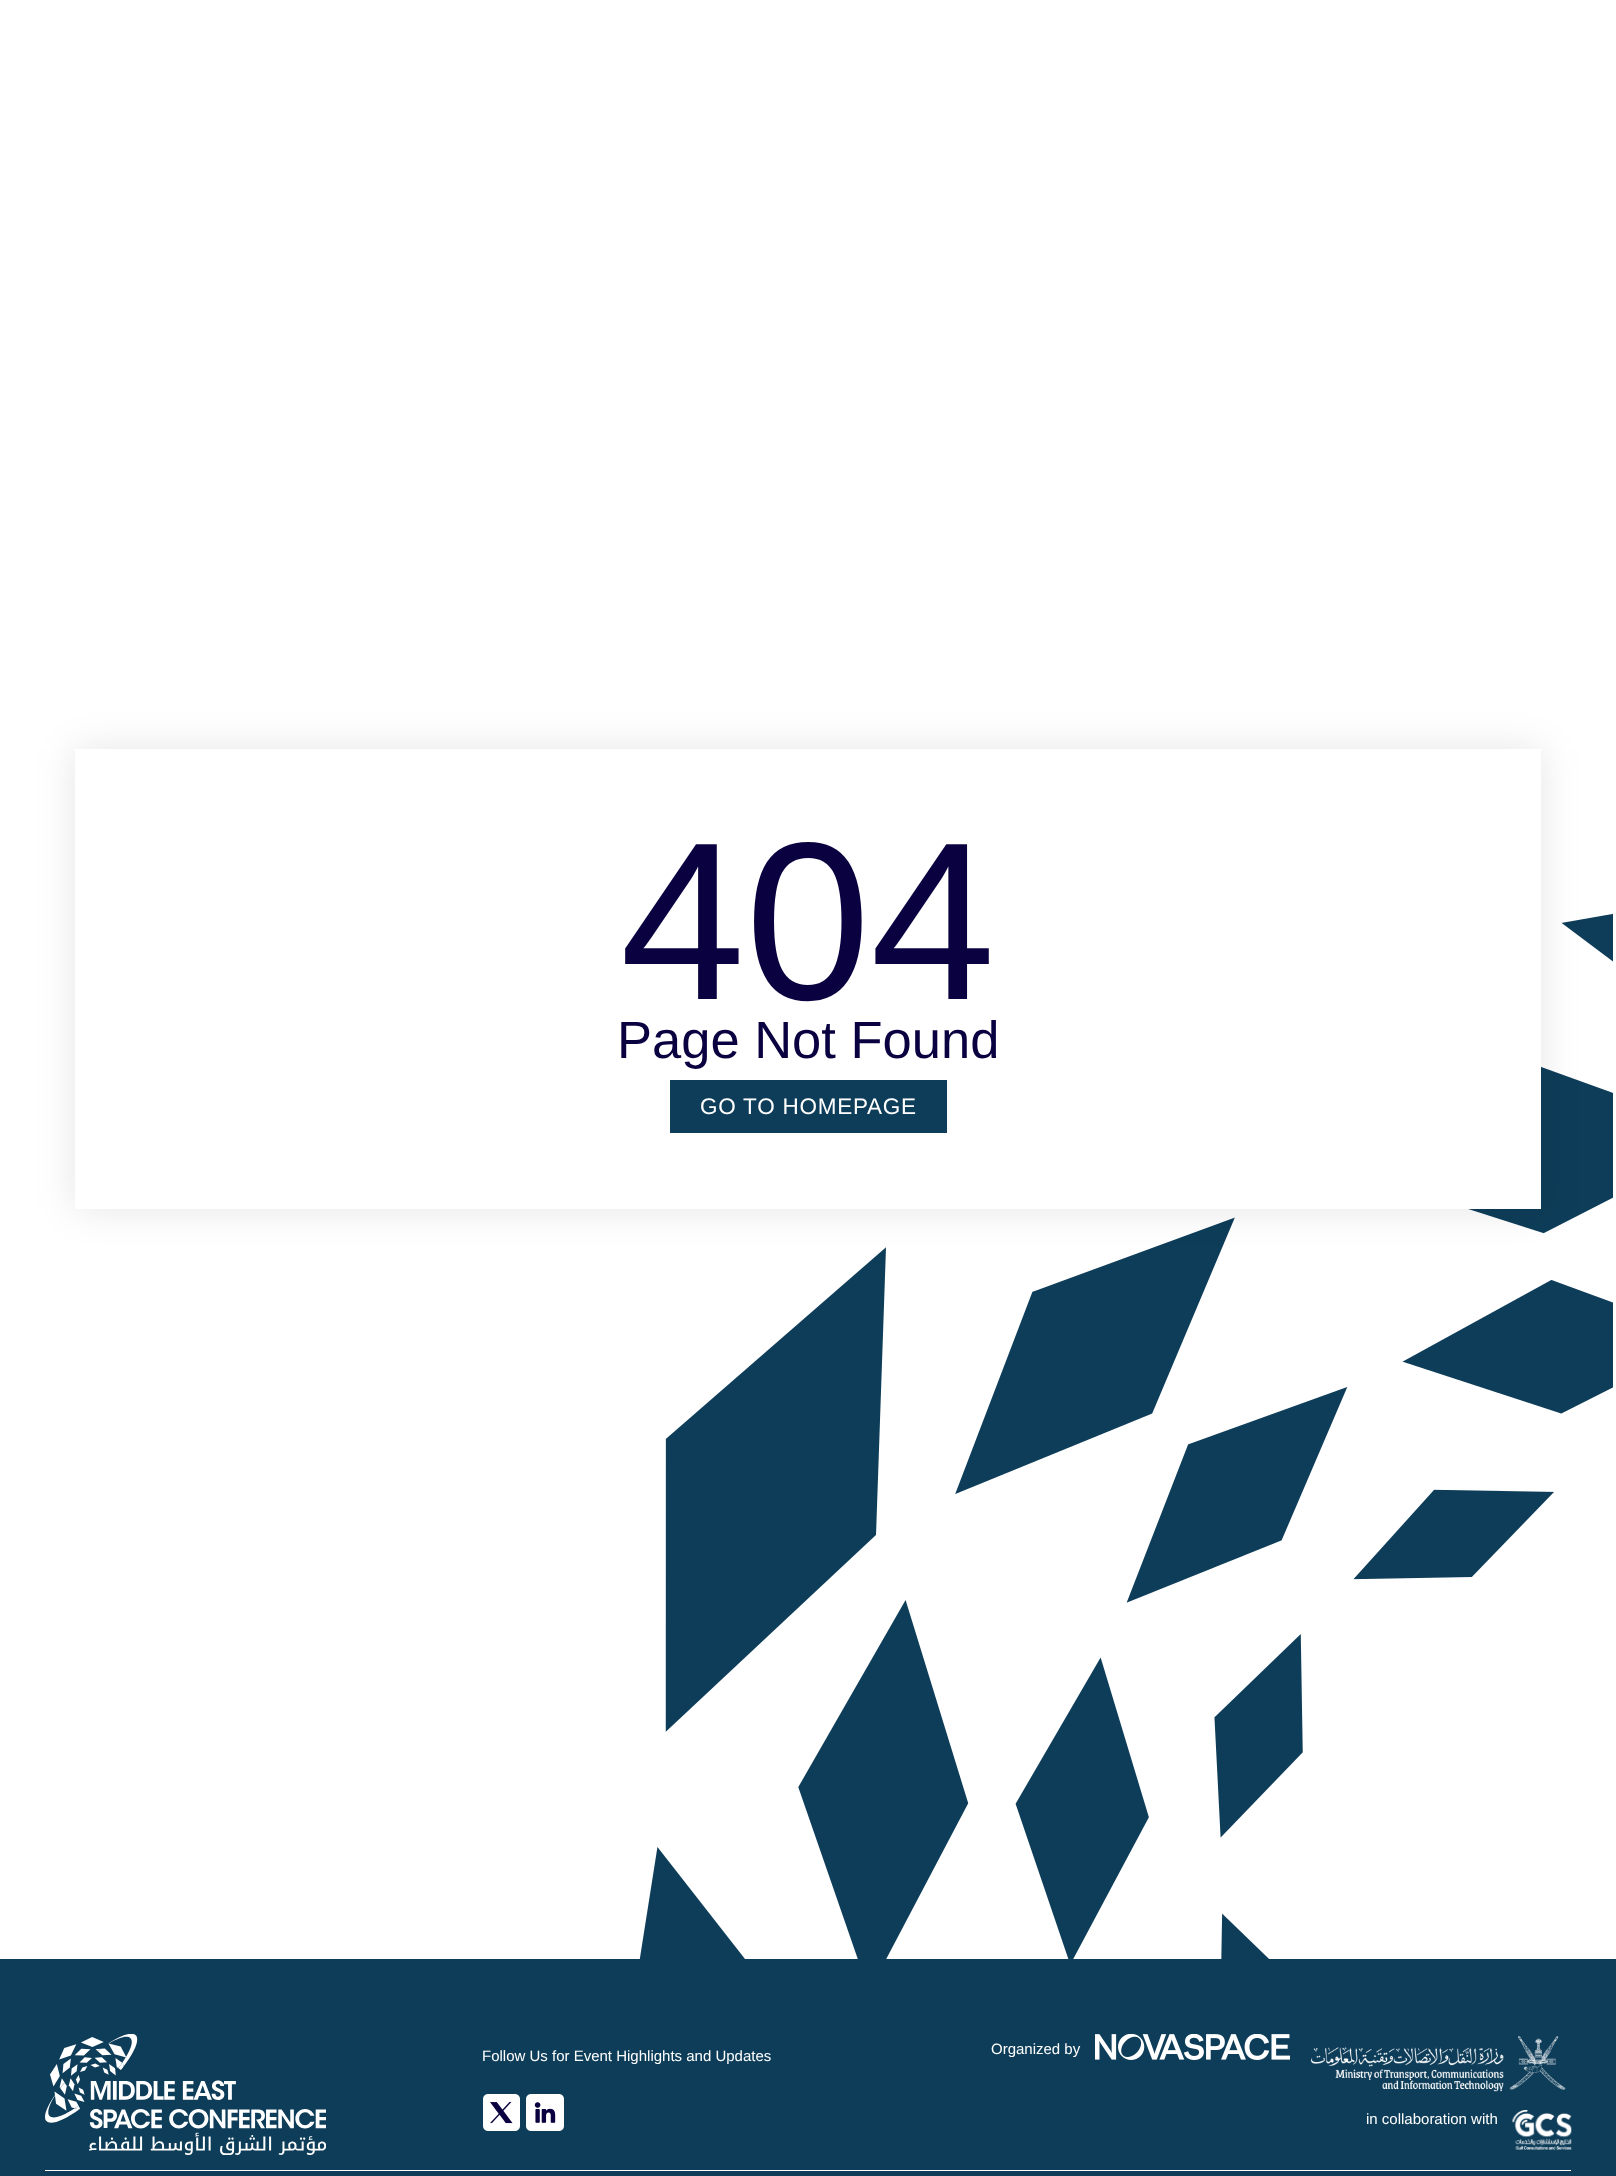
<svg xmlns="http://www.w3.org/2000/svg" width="1616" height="2176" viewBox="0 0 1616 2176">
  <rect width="100%" height="100%" fill="#fff"/>
  <image x="639" y="913" width="974" height="1046" href="img/1.png"/>
  <path d="M75 749h1466v460H75z" fill="#0000001a" filter="blur(19px)"/>
  <path d="M75 749h1466v460H75z" fill="#fff"/>
  <path d="M670 1080h277v53H670z" fill="#0e3d59"/>
  <path d="M0 1959h1616v217H0z" fill="#0e3d59"/>
  <path d="M45 2170h1526v1H45z" fill="#fff"/>
  <image x="45" y="2034" width="281" height="121" href="img/2.png"/>
  <image x="483" y="2094" width="37" height="37" href="img/3.png"/>
  <image x="526" y="2094" width="38" height="37" href="img/4.png"/>
  <image x="1095" y="2034" width="195" height="26" href="img/5.png"/>
  <image x="1310" y="2036" width="256" height="56" href="img/6.png"/>
  <image x="1512" y="2110" width="60" height="40" href="img/7.png"/>
  <text x="620" y="999" font-family="Liberation Sans" font-size="225" fill="#0a0140">404</text>
  <text x="617" y="1058" font-family="Liberation Sans" font-size="52.5" fill="#0a0140">Page Not Found</text>
  <text x="700" y="1114" font-family="Liberation Sans" font-size="22.5" letter-spacing="0.75" fill="#fff">GO TO HOMEPAGE</text>
  <g font-family="Liberation Sans" font-size="15" fill="#fff">
    <text x="482" y="2061">Follow Us for Event Highlights and Updates</text>
    <text x="991" y="2054">Organized by</text>
    <text x="1366" y="2124">in collaboration with</text>
  </g>
</svg>
